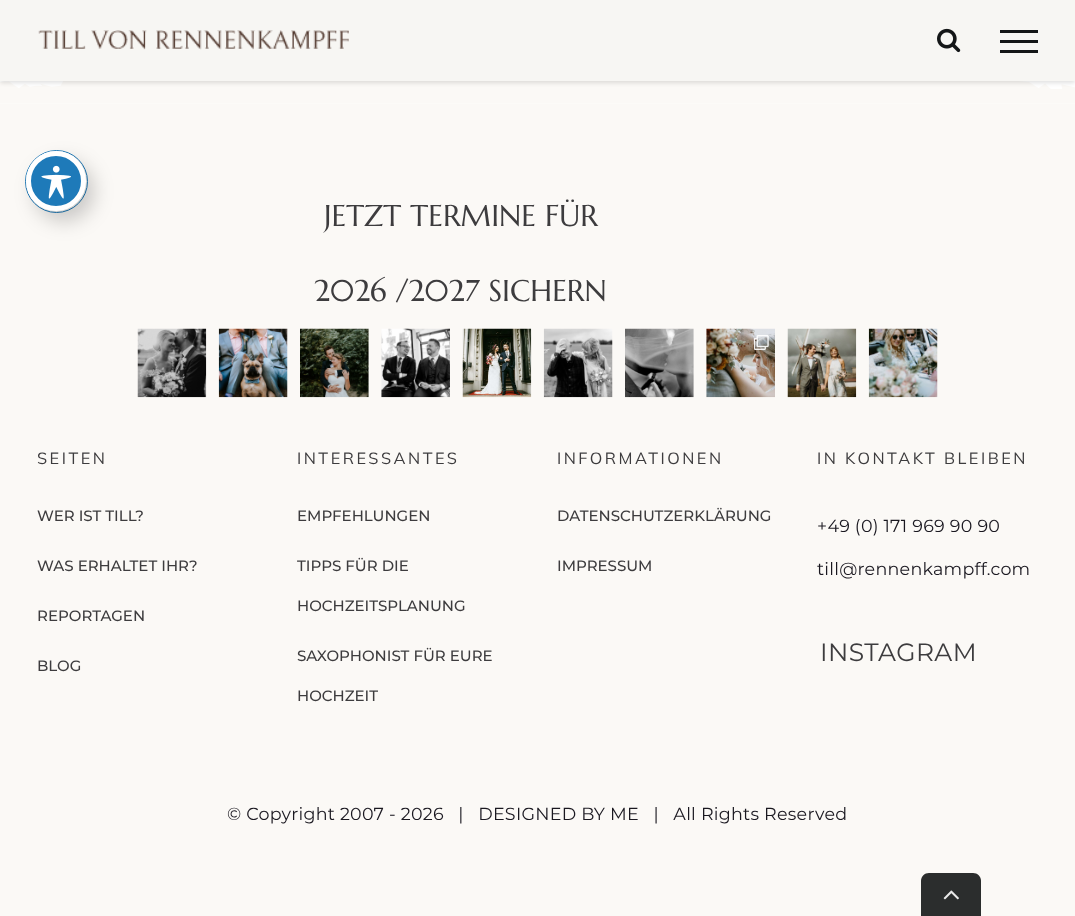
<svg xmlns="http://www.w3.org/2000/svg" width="1075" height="916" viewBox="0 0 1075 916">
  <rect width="100%" height="100%" fill="#fff"/>
  <path d="M0 104h1075v812H0z" fill="#fbf9f6"/>
  <circle cx="56.5" cy="181.5" r="31" fill="none" stroke="#1e7ab9"/>
  <rect x="34" y="161" width="60" height="60" rx="30" fill="#00000033" filter="blur(10px)"/>
  <circle cx="56" cy="181" r="27.5" fill="#1e7ab9" stroke="#fff" stroke-width="5"/>
  <image x="41" y="165" width="30" height="34" href="img/1.png"/>
  <image x="0" y="81" width="1075" height="23" href="img/4.png"/>
  <path d="M0 1h1075v82H0z" fill="#0000001f" filter="blur(2px)"/>
  <path d="M0 0h1075v81H0z" fill="#f7f6f3"/>
  <image x="38" y="30" width="311" height="20" href="img/2.png"/>
  <image x="937" y="28" width="24" height="25" href="img/3.png"/>
  <path d="M1000 30h38v3H1000z" fill="#141617"/>
  <path d="M1000 40h38v3H1000z" fill="#141617"/>
  <path d="M1000 50h38v3H1000z" fill="#141617"/>
  <image x="137" y="328" width="70" height="70" href="img/5.png"/>
  <image x="218" y="328" width="70" height="70" href="img/6.png"/>
  <image x="300" y="328" width="69" height="70" href="img/7.png"/>
  <image x="381" y="328" width="69" height="70" href="img/8.png"/>
  <image x="462" y="328" width="70" height="70" href="img/9.png"/>
  <image x="543" y="328" width="70" height="70" href="img/10.png"/>
  <image x="625" y="328" width="69" height="70" href="img/11.png"/>
  <image x="706" y="328" width="69" height="70" href="img/12.png"/>
  <image x="754" y="335" width="15" height="15" href="img/13.png"/>
  <image x="787" y="328" width="70" height="70" href="img/14.png"/>
  <image x="868" y="328" width="70" height="70" href="img/15.png"/>
  <path d="M929 873H973C977.5 873 981 876.5 981 881V916H921V881C921 876.5 924.5 873 929 873Z" fill="#2b2d2d"/>
  <image x="943" y="890" width="16" height="10" href="img/16.png"/>
  <g font-family="Marcellus" font-size="30" fill="#3d3c3e">
    <text x="324" y="226">JETZT TERMINE FÜR</text>
    <text x="314" y="301">2026 /2027 SICHERN</text>
  </g>
  <text x="37" y="464" font-family="Mulish" font-size="16.25" letter-spacing="2.5" fill="#3d3c3e">SEITEN</text>
  <g font-family="Montserrat" font-size="15" font-weight="500" fill="#3d3c3e">
    <text x="37" y="521">WER IST TILL?</text>
    <text x="37" y="571">WAS ERHALTET IHR?</text>
    <text x="37" y="621">REPORTAGEN</text>
    <text x="37" y="671">BLOG</text>
  </g>
  <text x="297" y="464" font-family="Mulish" font-size="16.25" letter-spacing="2.5" fill="#3d3c3e">INTERESSANTES</text>
  <g font-family="Montserrat" font-size="15" font-weight="500" fill="#3d3c3e">
    <text x="297" y="521">EMPFEHLUNGEN</text>
    <text x="297" y="571">TIPPS FÜR DIE</text>
    <text x="297" y="611">HOCHZEITSPLANUNG</text>
    <text x="297" y="661">SAXOPHONIST FÜR EURE</text>
    <text x="297" y="701">HOCHZEIT</text>
  </g>
  <text x="557" y="464" font-family="Mulish" font-size="16.25" letter-spacing="2.5" fill="#3d3c3e">INFORMATIONEN</text>
  <g font-family="Montserrat" font-size="15" font-weight="500" fill="#3d3c3e">
    <text x="557" y="521">DATENSCHUTZERKLÄRUNG</text>
    <text x="557" y="571">IMPRESSUM</text>
  </g>
  <text x="817" y="464" font-family="Mulish" font-size="16.25" letter-spacing="2.5" fill="#3d3c3e">IN KONTAKT BLEIBEN</text>
  <g font-family="Montserrat" font-size="17.5" letter-spacing="0.25" fill="#1a1820">
    <text x="817" y="532">+49 (0) 171 969 90 90</text>
    <text x="817" y="575">till@rennenkampff.com</text>
  </g>
  <text x="820" y="661" font-family="Montserrat" font-size="25" letter-spacing="0.4" fill="#3d3c3e">INSTAGRAM</text>
  <text x="227" y="820" font-family="Montserrat" font-size="17.5" letter-spacing="0.25" fill="#1a1820" xml:space="preserve">© Copyright 2007 - 2026   |   DESIGNED BY ME   |   All Rights Reserved</text>
</svg>
